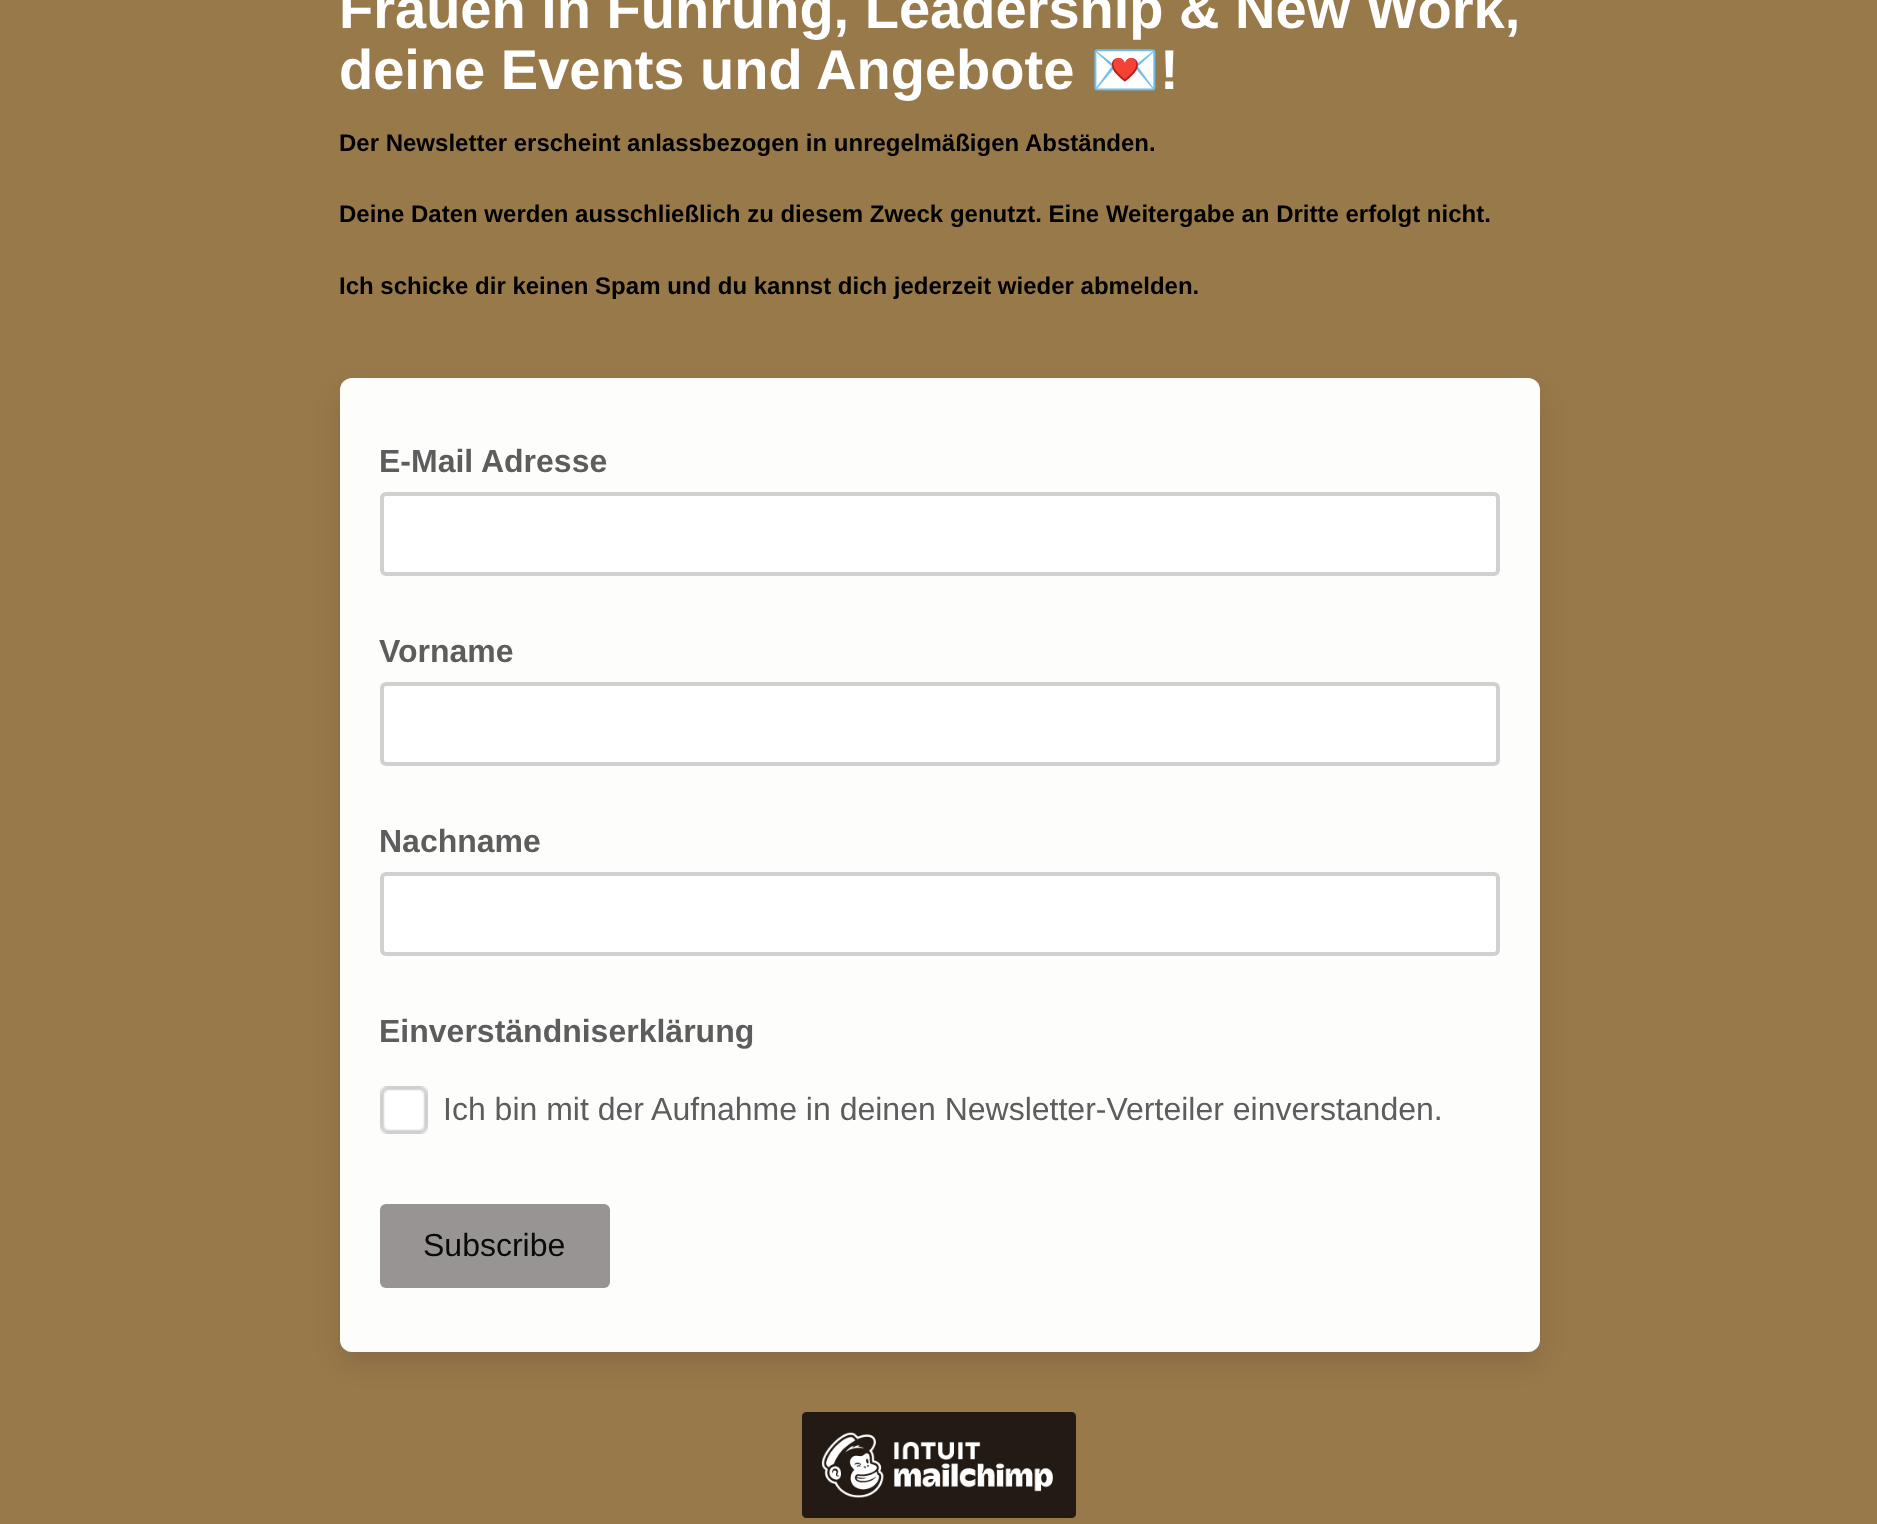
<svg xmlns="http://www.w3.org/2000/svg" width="1877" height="1524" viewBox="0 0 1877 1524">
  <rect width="100%" height="100%" fill="#98794a"/>
  <rect x="340" y="390" width="1200" height="974" rx="12" fill="#0d12161f" filter="blur(12px)"/>
  <rect x="340" y="378" width="1200" height="974" rx="12" fill="#fdfdfc"/>
  <rect x="382" y="494" width="1116" height="80" rx="4" fill="#fff" stroke="#d0d0d0" stroke-width="4"/>
  <rect x="382" y="684" width="1116" height="80" rx="4" fill="#fff" stroke="#d0d0d0" stroke-width="4"/>
  <rect x="382" y="874" width="1116" height="80" rx="4" fill="#fff" stroke="#d0d0d0" stroke-width="4"/>
  <image x="380" y="1086" width="48" height="48" href="img/1.png"/>
  <rect x="380" y="1204" width="230" height="84" rx="6" fill="#999494"/>
  <image x="802" y="1412" width="274" height="106" href="img/2.png"/>
  <g font-family="Liberation Sans" font-size="56" font-weight="bold" fill="#fff">
    <text x="339" y="28">Frauen in Führung, Leadership &amp; New Work,</text>
    <text x="339" y="89">deine Events und Angebote</text>
  </g>
  <text x="1090" y="89" font-family="Noto Color Emoji" font-size="56" font-weight="bold" fill="#fff">💌</text>
  <text x="1160" y="89" font-family="Liberation Sans" font-size="56" font-weight="bold" fill="#fff">!</text>
  <g font-family="Liberation Sans" font-size="24" font-weight="bold" fill="#000">
    <text x="339" y="151">Der Newsletter erscheint anlassbezogen in unregelmäßigen Abständen.</text>
    <text x="339" y="222">Deine Daten werden ausschließlich zu diesem Zweck genutzt. Eine Weitergabe an Dritte erfolgt nicht.</text>
    <text x="339" y="294">Ich schicke dir keinen Spam und du kannst dich jederzeit wieder abmelden.</text>
  </g>
  <g font-family="Liberation Sans" font-size="32" font-weight="bold" fill="#5d5d5d">
    <text x="379" y="472">E-Mail Adresse</text>
    <text x="379" y="662">Vorname</text>
    <text x="379" y="852">Nachname</text>
    <text x="379" y="1042">Einverständniserklärung</text>
  </g>
  <text x="443" y="1120" font-family="Liberation Sans" font-size="32" fill="#5d5d5d">Ich bin mit der Aufnahme in deinen Newsletter-Verteiler einverstanden.</text>
  <text x="423" y="1256" font-family="Liberation Sans" font-size="32" fill="#0a0a0a">Subscribe</text>
</svg>
